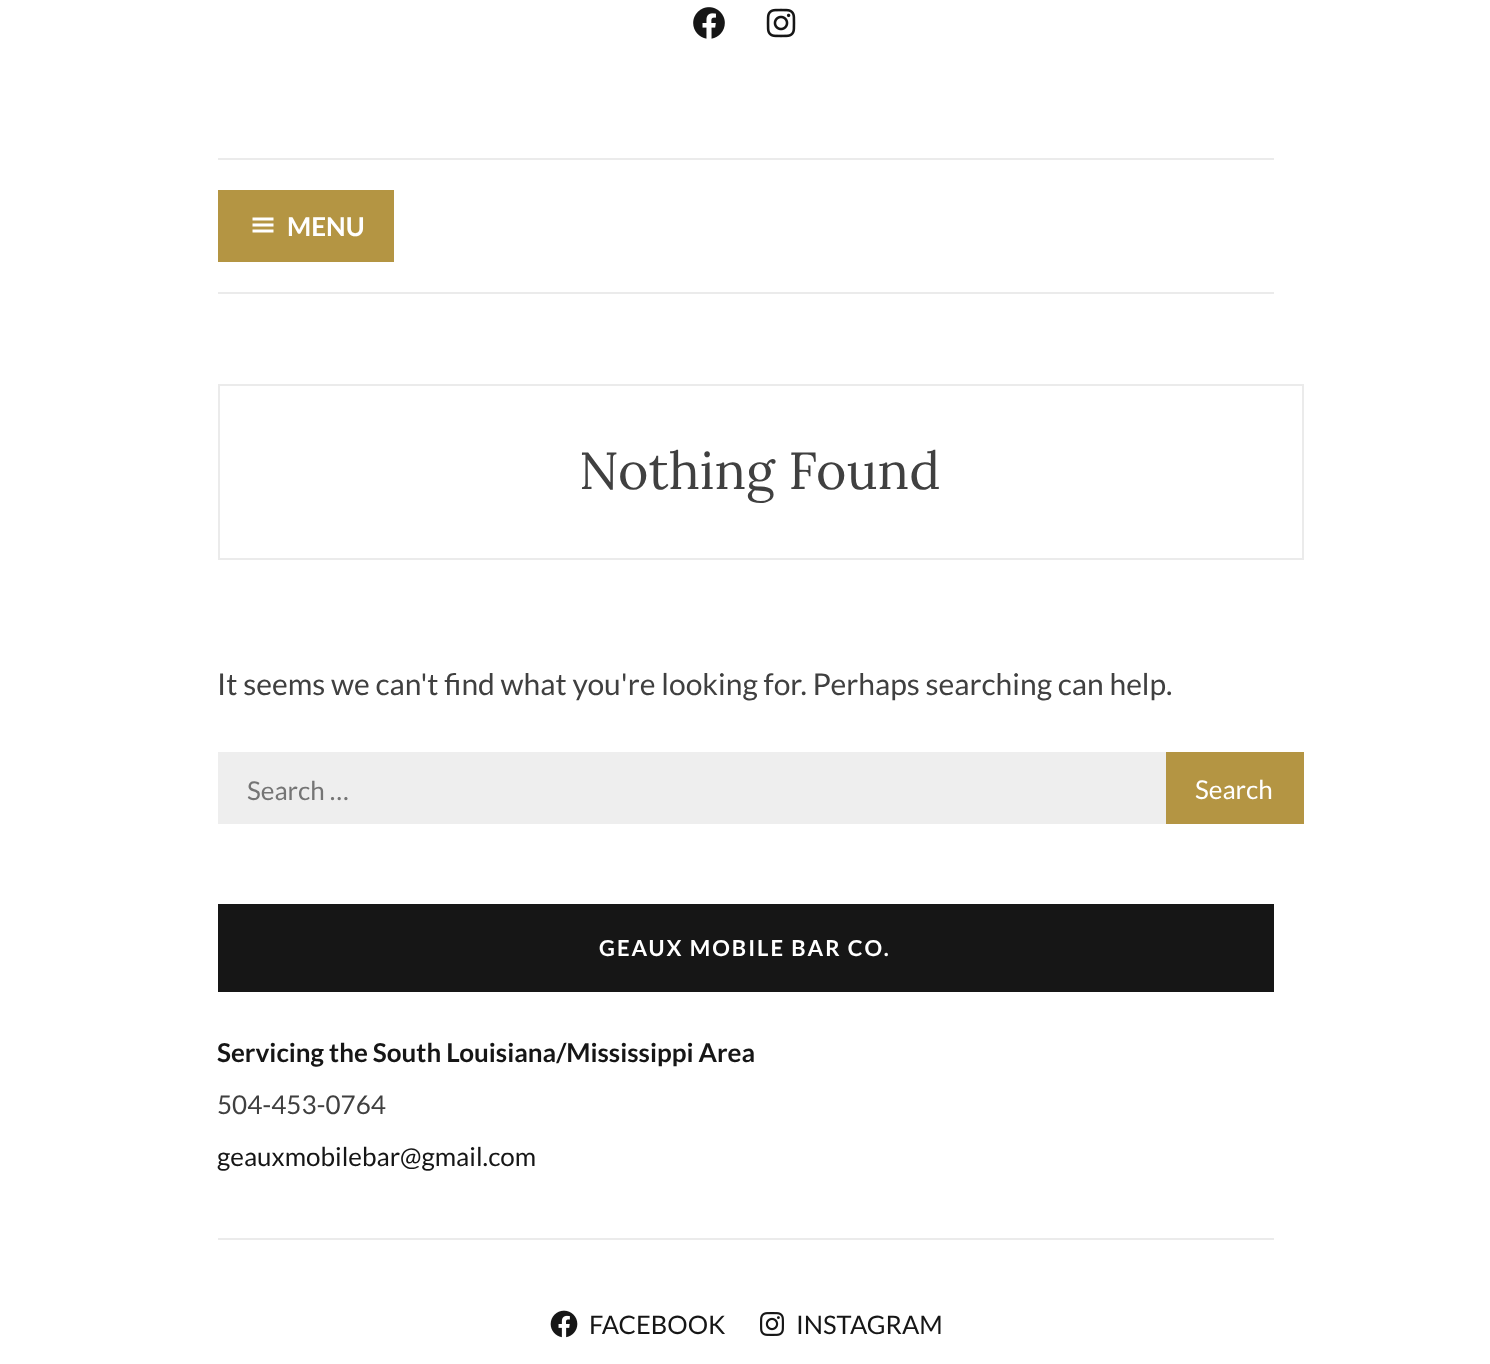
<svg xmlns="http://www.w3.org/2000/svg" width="1490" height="1364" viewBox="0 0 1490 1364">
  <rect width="100%" height="100%" fill="#fff"/>
  <image x="693" y="7" width="32" height="32" href="img/1.png"/>
  <image x="766" y="8" width="30" height="30" href="img/2.png"/>
  <path d="M218 158h1056v2H218z" fill="#ebebeb"/>
  <path d="M218 292h1056v2H218z" fill="#ebebeb"/>
  <path d="M218 190h176v72H218z" fill="#b49543"/>
  <image x="252" y="217" width="22" height="16" href="img/3.png"/>
  <path d="M219 385h1084v174H219z" fill="none" stroke="#ebebeb" stroke-width="2"/>
  <path d="M218 752h948v72H218z" fill="#eee"/>
  <path d="M1166 752h138v72H1166z" fill="#b49543"/>
  <path d="M218 904h1056v88H218z" fill="#161616"/>
  <path d="M218 1238h1056v2H218z" fill="#ebebeb"/>
  <image x="550" y="1310" width="28" height="28" href="img/4.png"/>
  <image x="760" y="1312" width="24" height="24" href="img/5.png"/>
  <text x="287" y="236" font-family="Lato" font-size="26" font-weight="bold" fill="#fff">MENU</text>
  <text x="579" y="489" font-family="Lora" font-size="52" fill="#404040">Nothing Found</text>
  <text x="217" y="695" font-family="Lato" font-size="30" fill="#404040">It seems we can't find what you're looking for. Perhaps searching can help.</text>
  <text x="247" y="800" font-family="Lato" font-size="26" fill="#757575">Search …</text>
  <text x="1195" y="799" font-family="Lato" font-size="26" fill="#fff">Search</text>
  <text x="599" y="956" font-family="Lato" font-size="22" font-weight="bold" letter-spacing="2" fill="#fff">GEAUX MOBILE BAR CO.</text>
  <text x="217" y="1062" font-family="Lato" font-size="26" font-weight="bold" fill="#161616">Servicing the South Louisiana/Mississippi Area</text>
  <text x="217" y="1114" font-family="Lato" font-size="26" fill="#404040">504-453-0764</text>
  <text x="217" y="1166" font-family="Lato" font-size="26" fill="#161616">geauxmobilebar@gmail.com</text>
  <g font-family="Lato" font-size="25.5" fill="#161616">
    <text x="589" y="1334">FACEBOOK</text>
    <text x="796" y="1334">INSTAGRAM</text>
  </g>
</svg>
